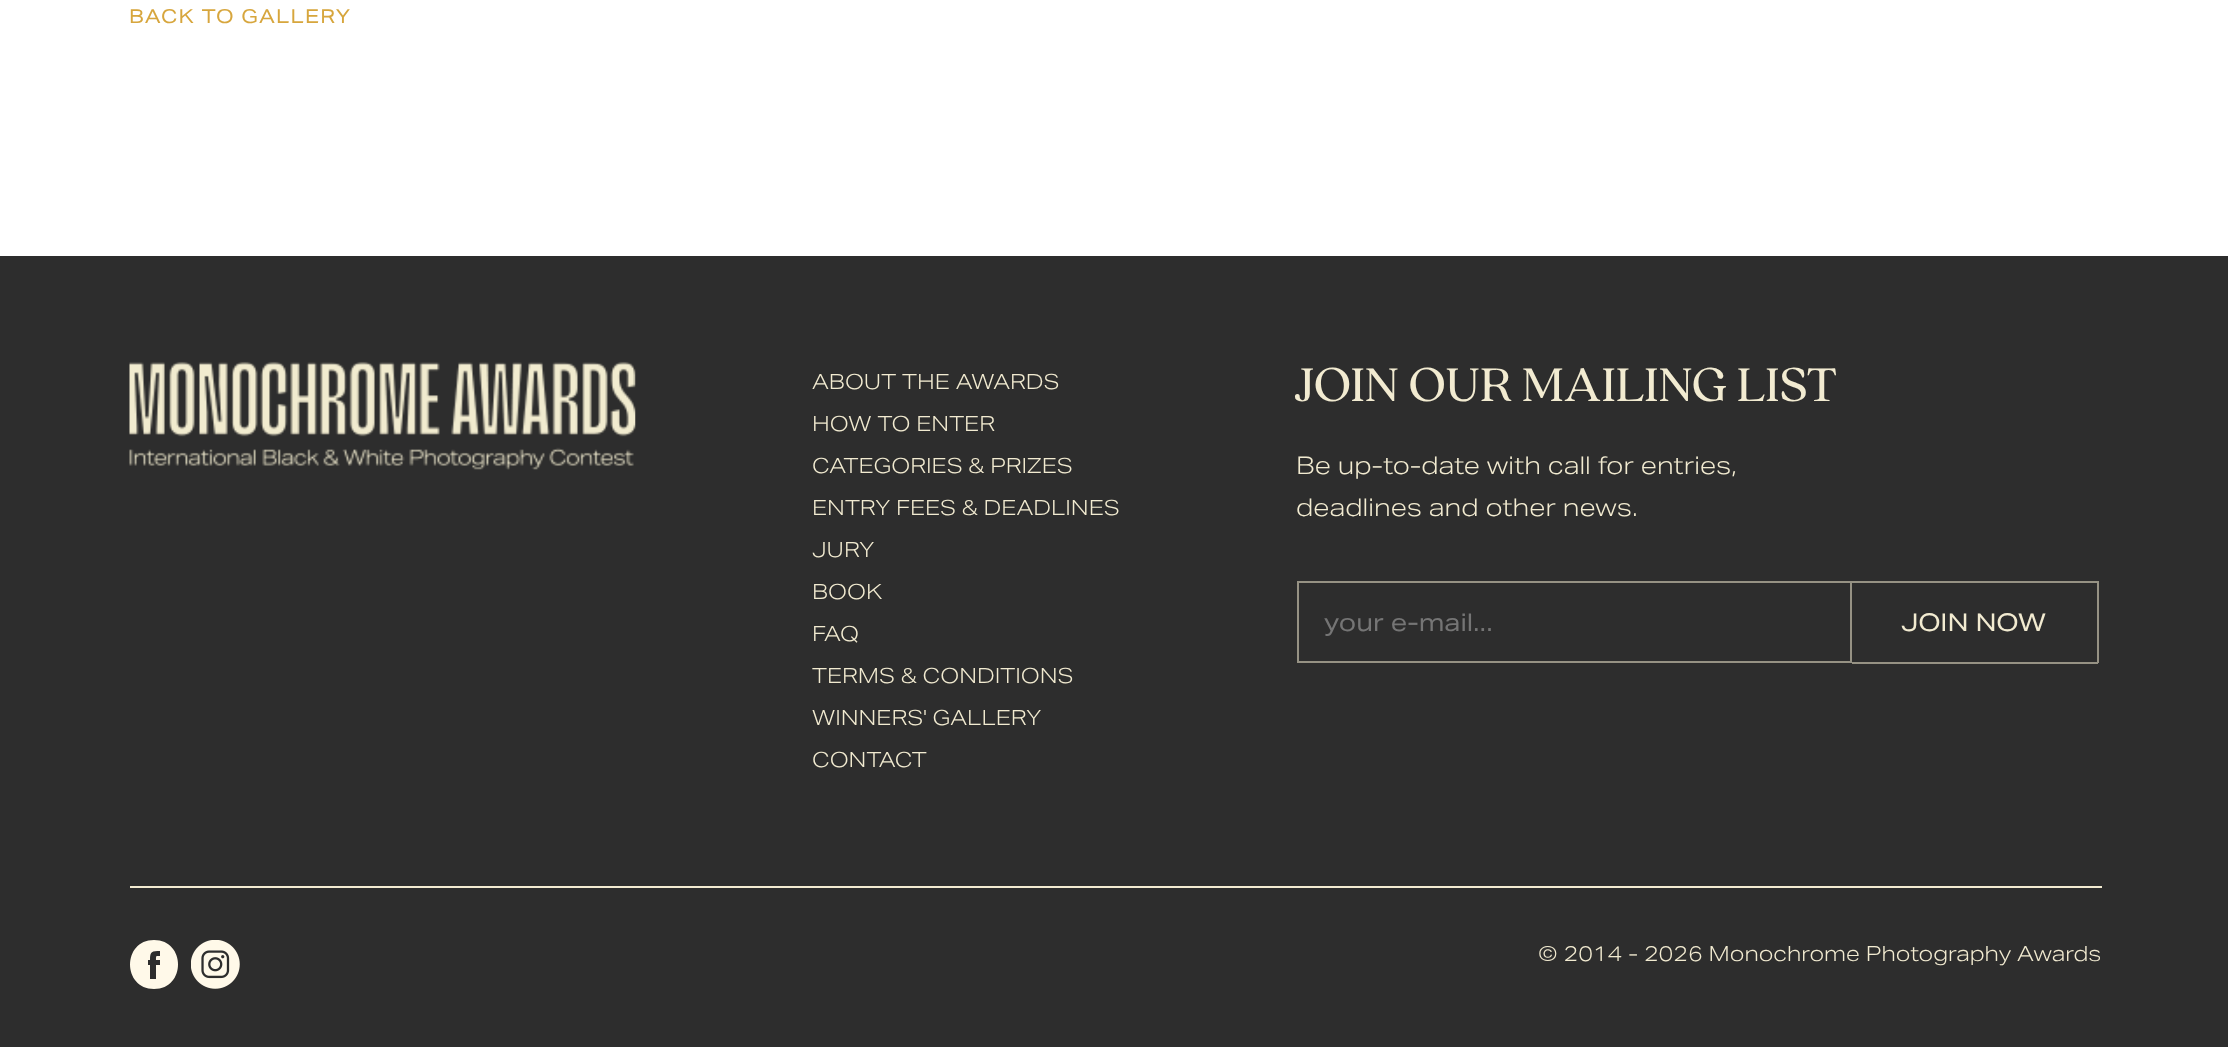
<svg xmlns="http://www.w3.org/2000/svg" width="2228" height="1047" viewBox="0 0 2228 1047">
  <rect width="100%" height="100%" fill="#fff"/>
  <path d="M0 256h2228v791H0z" fill="#2d2d2d"/>
  <image x="129" y="361" width="507" height="109" href="img/1.png"/>
  <path d="M1298 582h553v80H1298z" fill="none" stroke="#969284" stroke-width="2"/>
  <path d="M1852 581h246v2H1852z" fill="#969284"/>
  <path d="M2097 581h2v82H2097z" fill="#969284"/>
  <path d="M1852 662h246v2H1852z" fill="#969284"/>
  <path d="M130 886h1972v2H130z" fill="#f2ebd1"/>
  <path d="M154 940C122 940 122 989 154 989C186 989 186 940 154 940ZM160 956C156 956 156 955 156 960H160V965H156V979H150V965H148V960H150C150 951 152 951 160 951Z" fill="#fff9e9"/>
  <image x="191" y="940" width="49" height="49" href="img/2.png"/>
  <text x="129" y="23" font-family="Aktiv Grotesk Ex" font-size="19.25" letter-spacing="1.2" fill="#d7a63d">BACK TO GALLERY</text>
  <g font-family="Aktiv Grotesk Ex" font-size="21" font-weight="300" fill="#f2ebd1">
    <text x="812" y="389">ABOUT THE AWARDS</text>
    <text x="812" y="431">HOW TO ENTER</text>
    <text x="812" y="473">CATEGORIES &amp; PRIZES</text>
    <text x="812" y="515">ENTRY FEES &amp; DEADLINES</text>
    <text x="812" y="557">JURY</text>
    <text x="812" y="599">BOOK</text>
    <text x="812" y="641">FAQ</text>
    <text x="812" y="683">TERMS &amp; CONDITIONS</text>
    <text x="812" y="725">WINNERS' GALLERY</text>
    <text x="812" y="767">CONTACT</text>
  </g>
  <text x="1296" y="401" font-family="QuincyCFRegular" font-size="52.5" fill="#f2ebd1">JOIN OUR MAILING LIST</text>
  <g font-family="Aktiv Grotesk Ex" font-size="24.5" font-weight="300" fill="#f2ebd1">
    <text x="1296" y="474">Be up-to-date with call for entries,</text>
    <text x="1296" y="516">deadlines and other news.</text>
  </g>
  <text x="1324" y="631" font-family="Aktiv Grotesk Ex" font-size="24.5" fill="#757575">your e-mail...</text>
  <text x="1901" y="631" font-family="Aktiv Grotesk Ex" font-size="24.5" fill="#f2ebd1">JOIN NOW</text>
  <text x="1538" y="961" font-family="Aktiv Grotesk Ex" font-size="21" font-weight="300" fill="#f2ebd1">© 2014 - 2026 Monochrome Photography Awards</text>
</svg>
